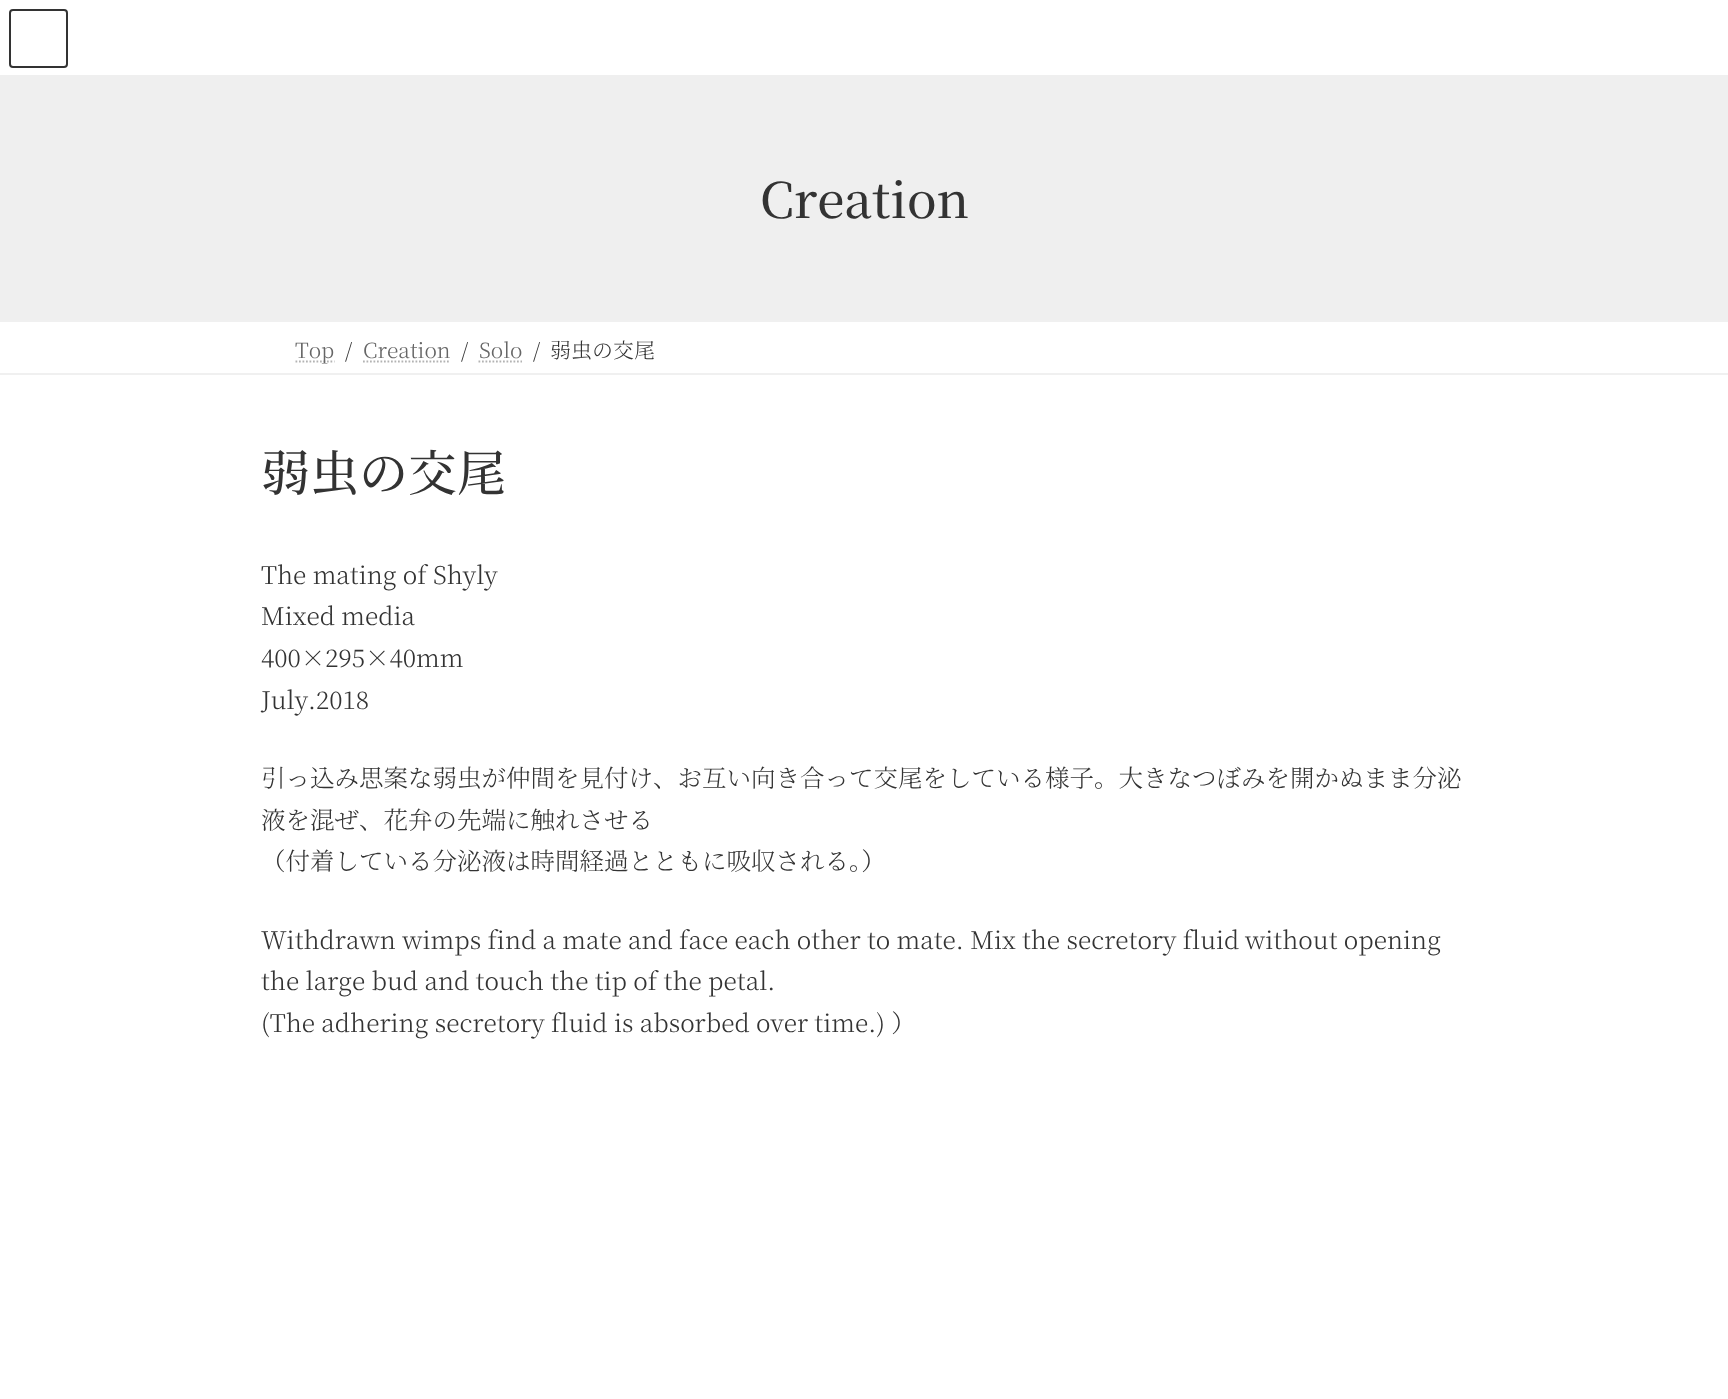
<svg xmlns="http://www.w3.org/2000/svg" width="1728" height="1399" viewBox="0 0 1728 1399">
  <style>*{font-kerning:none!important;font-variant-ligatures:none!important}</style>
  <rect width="100%" height="100%" fill="#fff"/>
  <rect x="10" y="10" width="57" height="57" rx="3" fill="none" stroke="#333" stroke-width="2"/>
  <path d="M0 75h1728v245H0z" fill="#efefef"/>
  <path d="M0 320h1728v2H0z" fill="#f0f0f0"/>
  <path d="M0 373h1728v2H0z" fill="#f0f0f0"/>
  <path d="M295.5 361.5H334.5" fill="none" stroke="#b3b3b3" stroke-width="1.8" stroke-dasharray="1.75 1.75"/>
  <path d="M363 361.5H450.5" fill="none" stroke="#b3b3b3" stroke-width="1.8" stroke-dasharray="1.75 1.75"/>
  <path d="M478.5 361.5H522" fill="none" stroke="#b3b3b3" stroke-width="1.8" stroke-dasharray="1.75 1.75"/>
  <text x="760" y="218" font-family="Noto Serif JP" font-size="49" font-weight="500" fill="#333">Creation</text>
  <text x="295" y="358" font-family="Noto Serif JP" font-size="21" font-weight="300" fill="#666">Top</text>
  <text x="345" y="358" font-family="Noto Serif JP" font-size="21" font-weight="300" fill="#333">/</text>
  <text x="363" y="358" font-family="Noto Serif JP" font-size="21" font-weight="300" fill="#666">Creation</text>
  <text x="461" y="358" font-family="Noto Serif JP" font-size="21" font-weight="300" fill="#333">/</text>
  <text x="479" y="358" font-family="Noto Serif JP" font-size="21" font-weight="300" fill="#666">Solo</text>
  <g font-family="Noto Serif JP" font-size="21" font-weight="300" fill="#333">
    <text x="533" y="358">/</text>
    <text x="550" y="358">弱虫の交尾</text>
  </g>
  <text x="261" y="491" font-family="Noto Serif JP" font-size="49" font-weight="500" fill="#333">弱虫の交尾</text>
  <g font-family="Noto Serif JP" font-size="24.5" font-weight="300" fill="#333">
    <text x="261" y="584">The mating of Shyly</text>
    <text x="261" y="625">Mixed media</text>
    <text x="261" y="667">400×295×40mm</text>
    <text x="261" y="709">July.2018</text>
    <text x="261" y="787">引っ込み思案な弱虫が仲間を見付け、お互い向き合って交尾をしている様子。大きなつぼみを開かぬまま分泌</text>
    <text x="261" y="829">液を混ぜ、花弁の先端に触れさせる</text>
    <text x="261" y="870">（付着している分泌液は時間経過とともに吸収される。）</text>
    <text x="261" y="949">Withdrawn wimps find a mate and face each other to mate. Mix the secretory fluid</text>
    <text x="1245" y="949">without opening</text>
    <text x="261" y="990">the large bud and touch the tip of the petal.</text>
    <text x="261" y="1032">(The adhering secretory fluid is absorbed over time.) ）</text>
  </g>
</svg>
